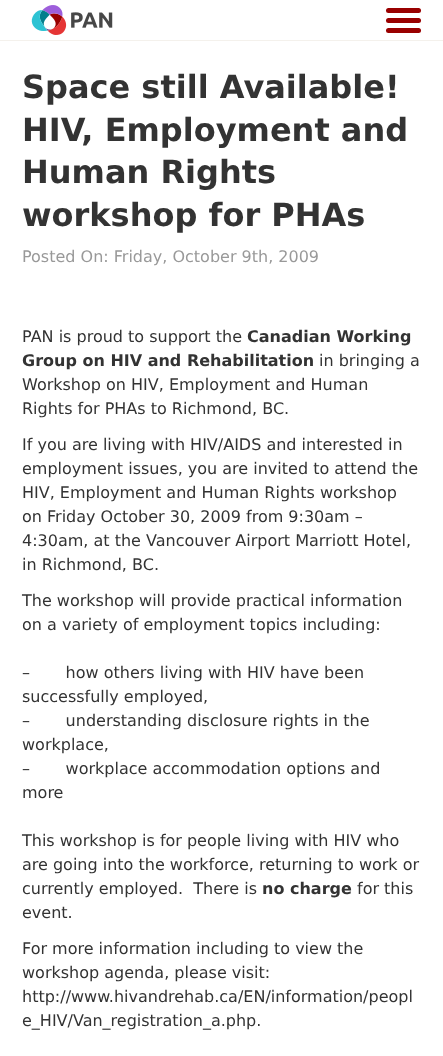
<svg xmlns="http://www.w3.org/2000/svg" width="443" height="1056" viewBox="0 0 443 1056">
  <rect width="100%" height="100%" fill="#fff"/>
  <path d="M0 40h443v1H0z" fill="#f4f1ec"/>
  <image x="31" y="5" width="82" height="30" href="img/1.png"/>
  <rect x="386" y="18" width="35" height="5" rx="2.5" fill="#900"/>
  <rect x="386" y="8" width="35" height="5" rx="2.5" fill="#900"/>
  <rect x="386" y="28" width="35" height="5" rx="2.5" fill="#900"/>
  <g font-family="DejaVu Sans" font-size="32" font-weight="bold" fill="#333">
    <text x="22" y="98">Space still Available!</text>
    <text x="22" y="141">HIV, Employment and</text>
    <text x="22" y="183">Human Rights</text>
    <text x="22" y="226">workshop for PHAs</text>
  </g>
  <text x="22" y="262" font-family="DejaVu Sans" font-size="16" fill="#999">Posted On: Friday, October 9th, 2009</text>
  <text x="22" y="342" font-family="DejaVu Sans" font-size="16" fill="#333">PAN is proud to support the</text>
  <g font-family="DejaVu Sans" font-size="16" font-weight="bold" fill="#333">
    <text x="247" y="342">Canadian Working</text>
    <text x="22" y="366">Group on HIV and Rehabilitation</text>
  </g>
  <g font-family="DejaVu Sans" font-size="16" fill="#333">
    <text x="319" y="366">in bringing a</text>
    <text x="22" y="390">Workshop on HIV, Employment and Human</text>
    <text x="22" y="414">Rights for PHAs to Richmond, BC.</text>
    <text x="22" y="450">If you are living with HIV/AIDS and interested in</text>
    <text x="22" y="474">employment issues, you are invited to attend the</text>
    <text x="22" y="498">HIV, Employment and Human Rights workshop</text>
    <text x="22" y="522">on Friday October 30, 2009 from 9:30am –</text>
    <text x="22" y="546">4:30am, at the Vancouver Airport Marriott Hotel,</text>
    <text x="22" y="570">in Richmond, BC.</text>
    <text x="22" y="606">The workshop will provide practical information</text>
    <text x="22" y="630">on a variety of employment topics including:</text>
    <text x="22" y="678" xml:space="preserve">–       how others living with HIV have been</text>
    <text x="22" y="702">successfully employed,</text>
    <text x="22" y="726" xml:space="preserve">–       understanding disclosure rights in the</text>
    <text x="22" y="750">workplace,</text>
    <text x="22" y="774" xml:space="preserve">–       workplace accommodation options and</text>
    <text x="22" y="798">more</text>
    <text x="22" y="846">This workshop is for people living with HIV who</text>
    <text x="22" y="870">are going into the workforce, returning to work or</text>
    <text x="22" y="894" xml:space="preserve">currently employed.  There is</text>
  </g>
  <text x="262" y="894" font-family="DejaVu Sans" font-size="16" font-weight="bold" fill="#333">no charge</text>
  <g font-family="DejaVu Sans" font-size="16" fill="#333">
    <text x="357" y="894">for this</text>
    <text x="22" y="918">event.</text>
    <text x="22" y="954">For more information including to view the</text>
    <text x="22" y="978">workshop agenda, please visit:</text>
    <text x="22" y="1002">http://www.hivandrehab.ca/EN/information/peopl</text>
    <text x="22" y="1026">e_HIV/Van_registration_a.php.</text>
  </g>
</svg>
